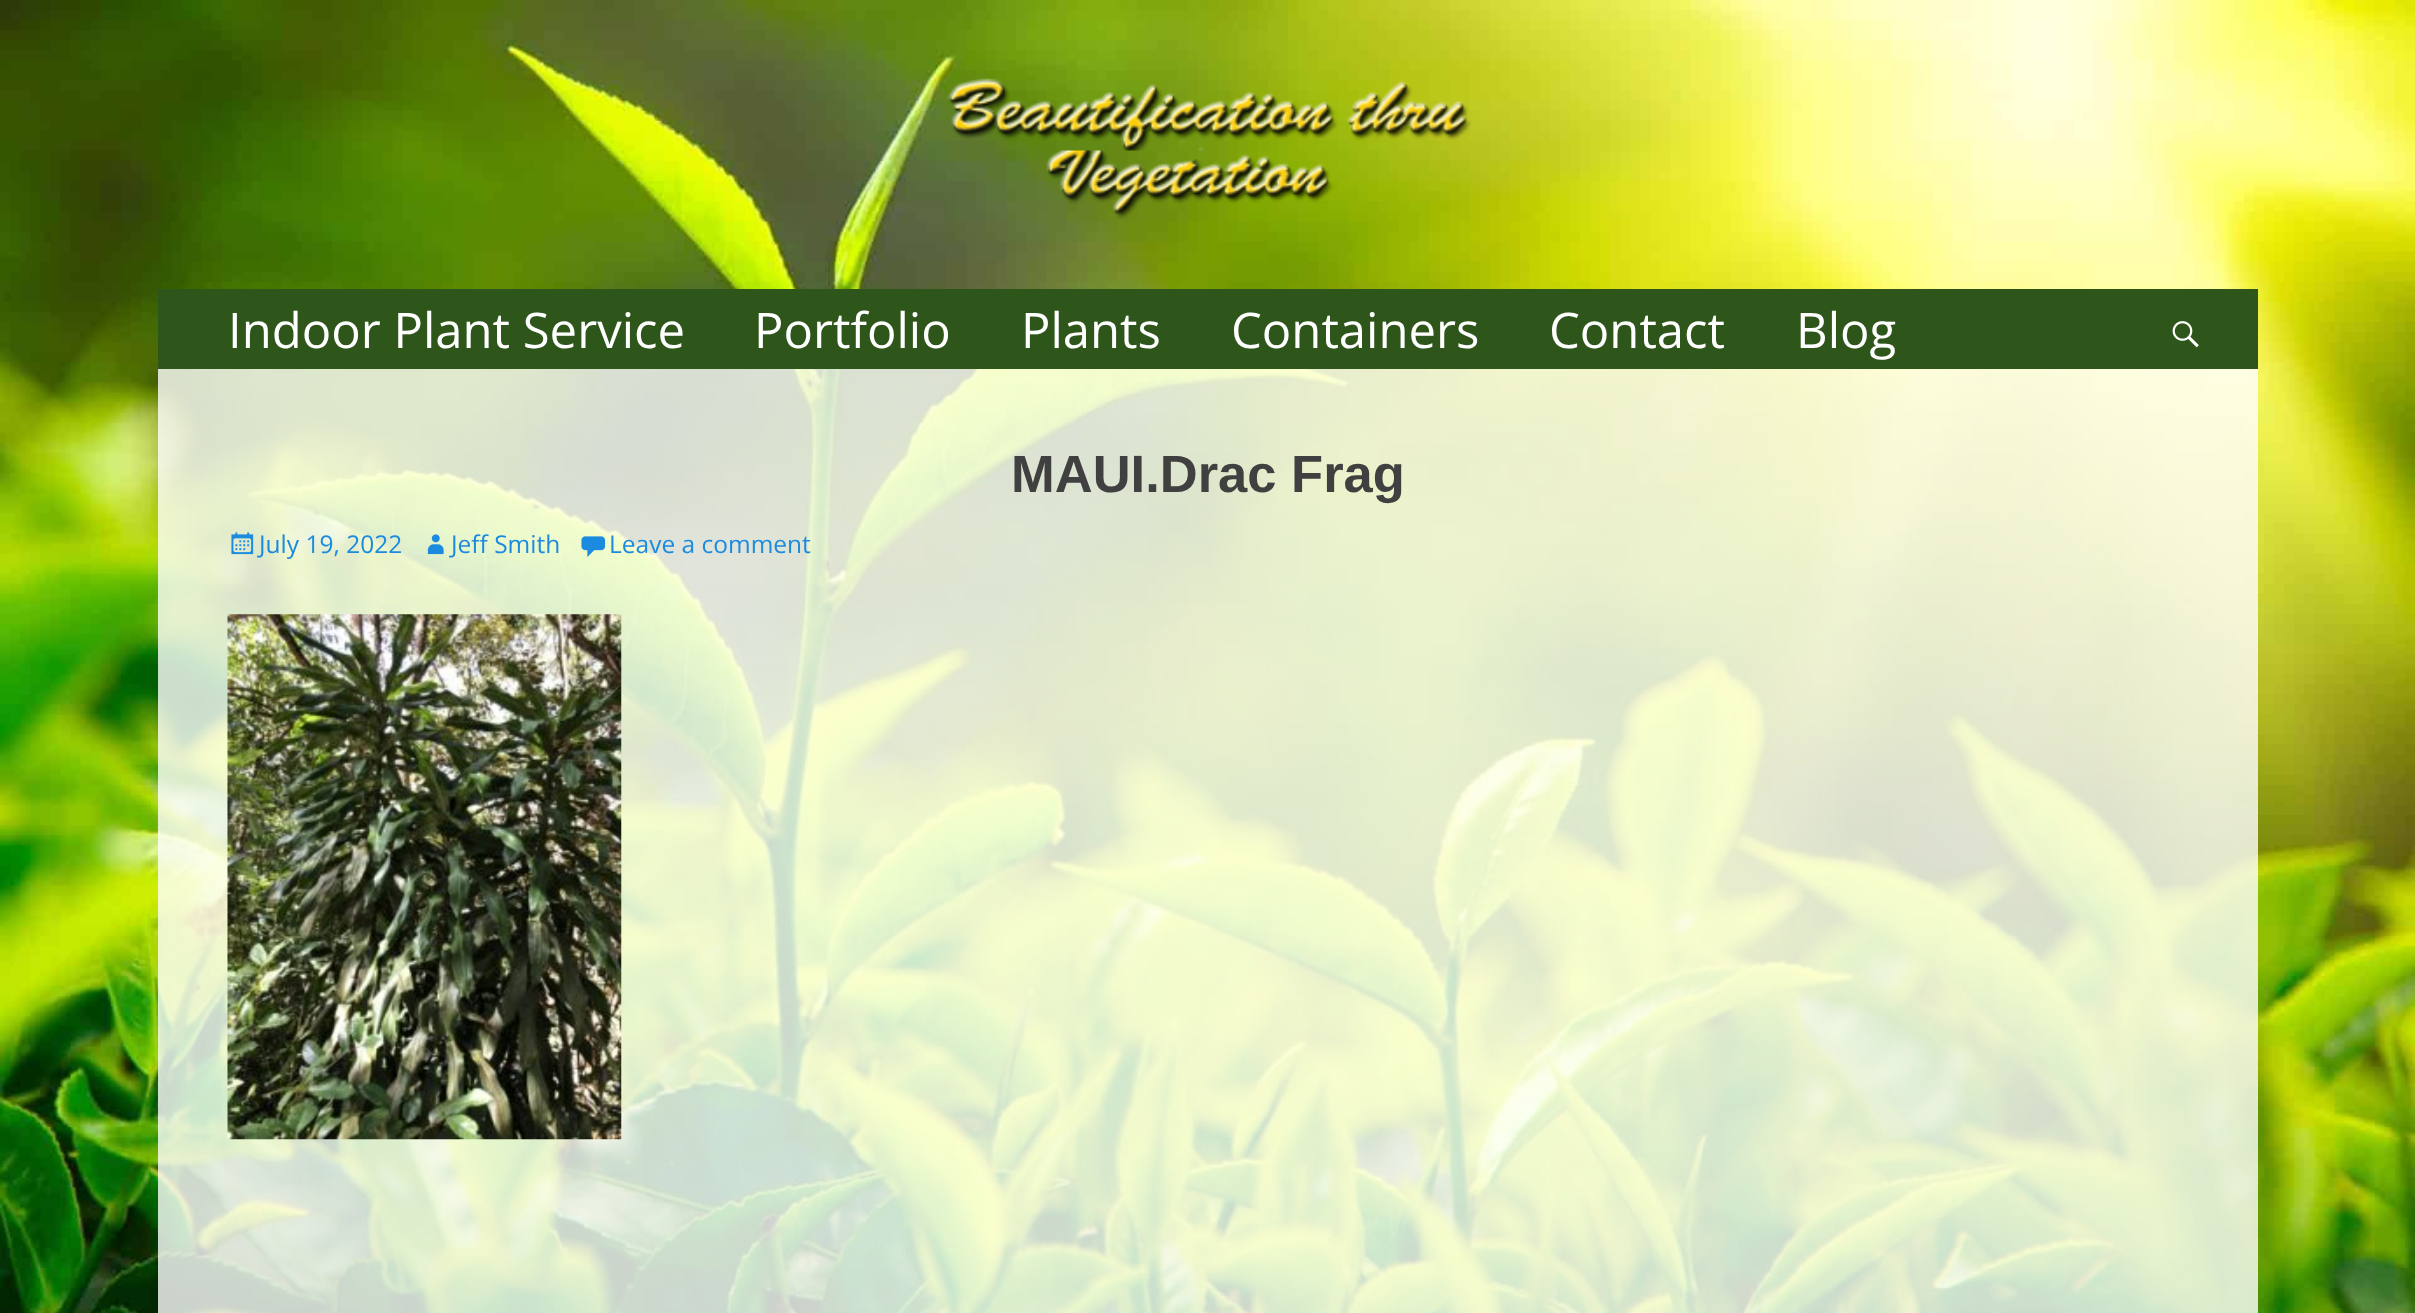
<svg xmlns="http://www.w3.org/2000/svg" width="2415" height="1313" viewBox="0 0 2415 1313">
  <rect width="100%" height="100%" fill="#fff"/>
  <image x="0" y="0" width="2415" height="1313" href="img/1.png"/>
  <image x="946" y="78" width="526" height="141" href="img/2.png"/>
  <path d="M158 289h2100v80H158z" fill="#2e561a"/>
  <image x="2172" y="321" width="27" height="27" href="img/3.png"/>
  <path d="M158 369h2100v944H158z" fill="#ffffffcc"/>
  <image x="231" y="532" width="23" height="23" href="img/4.png"/>
  <image x="427" y="534" width="17" height="21" href="img/5.png"/>
  <image x="581" y="536" width="25" height="21" href="img/6.png"/>
  <image x="227" y="614" width="395" height="526" href="img/7.png"/>
  <g font-family="Open Sans" font-size="49" fill="#fff">
    <text x="228" y="348">Indoor Plant Service</text>
    <text x="754" y="348">Portfolio</text>
    <text x="1021" y="348">Plants</text>
    <text x="1231" y="348">Containers</text>
    <text x="1549" y="348">Contact</text>
    <text x="1796" y="348">Blog</text>
  </g>
  <text x="1011" y="492" font-family="Liberation Sans" font-size="52.5" font-weight="bold" fill="#404040">MAUI.Drac Frag</text>
  <g font-family="Open Sans" font-size="24.5" fill="#1b8be0">
    <text x="259" y="553">July 19, 2022</text>
    <text x="451" y="553">Jeff Smith</text>
    <text x="609" y="553">Leave a comment</text>
  </g>
</svg>
